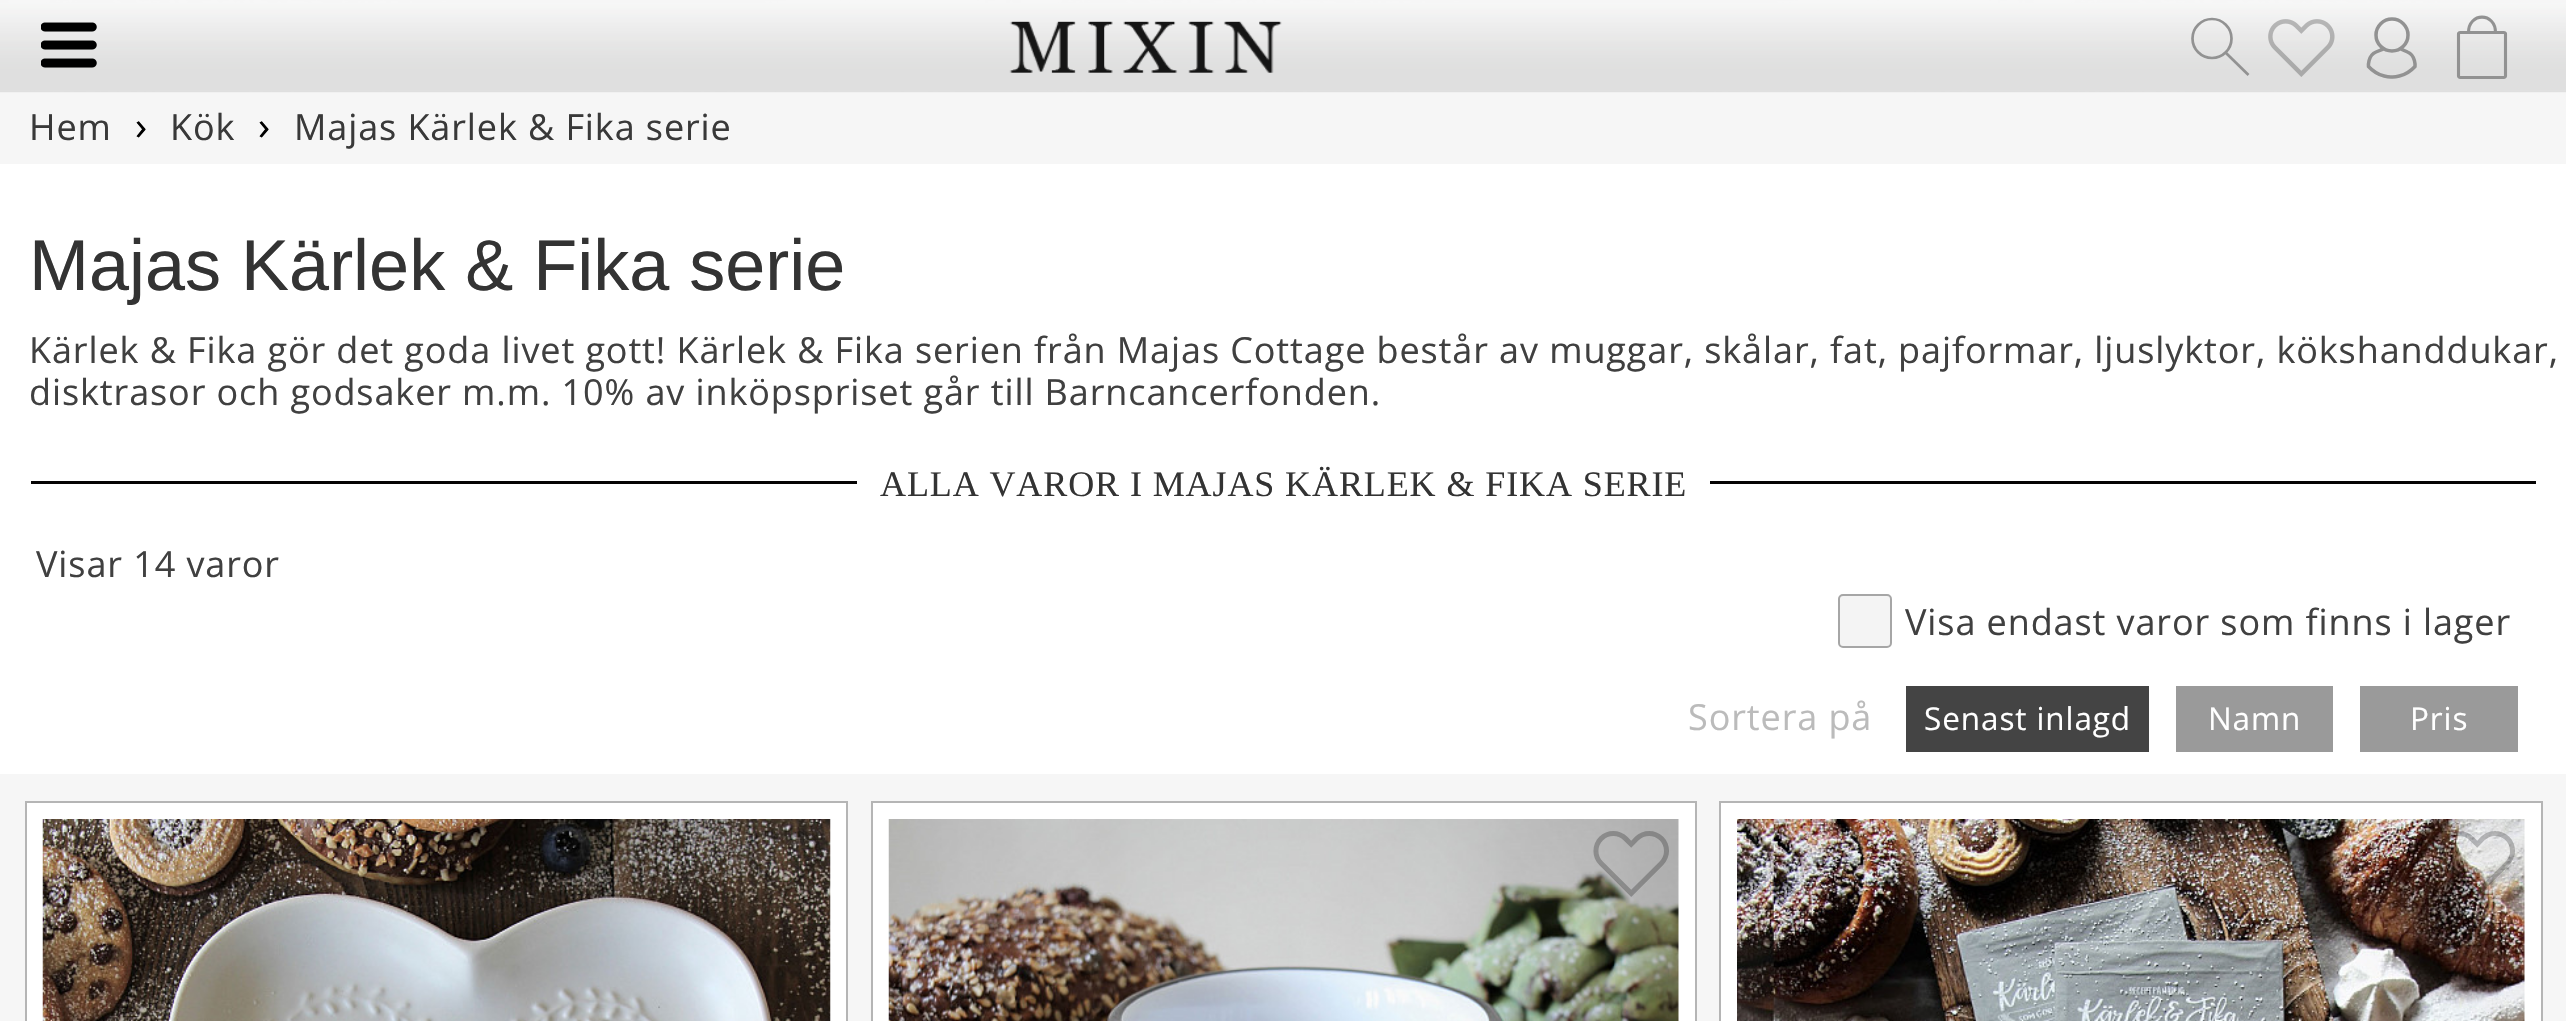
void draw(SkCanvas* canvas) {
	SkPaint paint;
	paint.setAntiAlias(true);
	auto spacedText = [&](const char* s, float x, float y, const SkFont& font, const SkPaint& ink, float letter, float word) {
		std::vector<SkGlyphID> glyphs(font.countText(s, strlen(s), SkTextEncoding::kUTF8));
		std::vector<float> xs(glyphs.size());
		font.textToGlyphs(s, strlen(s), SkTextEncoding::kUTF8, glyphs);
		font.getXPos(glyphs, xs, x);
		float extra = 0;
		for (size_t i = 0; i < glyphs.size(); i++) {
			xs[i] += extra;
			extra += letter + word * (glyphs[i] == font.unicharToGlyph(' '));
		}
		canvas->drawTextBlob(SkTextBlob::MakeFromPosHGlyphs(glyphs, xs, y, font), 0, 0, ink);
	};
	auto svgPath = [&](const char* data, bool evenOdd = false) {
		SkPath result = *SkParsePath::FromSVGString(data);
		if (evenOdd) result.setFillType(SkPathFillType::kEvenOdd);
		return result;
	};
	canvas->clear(0xffffffff);
	canvas->drawImageRect(SkImages::DeferredFromEncodedData(SkData::MakeFromFileName("img1.png")), SkRect::MakeXYWH(0, 0, 2566, 92), SkSamplingOptions());
	paint.setColor(0xfff6f6f6);
	canvas->drawRect(SkRect::MakeXYWH(0, 92, 2566, 72), paint);
	canvas->drawImageRect(SkImages::DeferredFromEncodedData(SkData::MakeFromFileName("img2.png")), SkRect::MakeXYWH(0, 0, 2566, 93), SkSamplingOptions());
	canvas->drawImageRect(SkImages::DeferredFromEncodedData(SkData::MakeFromFileName("img3.png")), SkRect::MakeXYWH(41, 22, 56, 46), SkSamplingOptions());
	canvas->drawImageRect(SkImages::DeferredFromEncodedData(SkData::MakeFromFileName("img4.png")), SkRect::MakeXYWH(1009, 21, 273, 52), SkSamplingOptions());
	paint.setStroke(true);
	paint.setStrokeWidth(2.7);
	paint.setColor(0xff929292);
	canvas->drawCircle(2212, 38.5, 19.5, paint);
	canvas->drawPath(svgPath("M2225.5 52.5L2248.5 75"), paint);
	canvas->drawImageRect(SkImages::DeferredFromEncodedData(SkData::MakeFromFileName("img5.png")), SkRect::MakeXYWH(2268, 19, 67, 58), SkSamplingOptions());
	paint.setStrokeWidth(3.5);
	canvas->drawCircle(2392, 35, 16, paint);
	canvas->drawPath(svgPath("M2391.5 77C2391.5 77 2404.5 78 2415 66.5C2415 66.5 2416 55.5 2407.5 52L2402 49.5L2401.5 47.5M2392 77C2392 77 2379 78 2368.5 66.5C2368.5 66.5 2367.5 55.5 2376 52L2382 49.5V47.5"), paint);
	paint.setStrokeWidth(3.1);
	canvas->drawPath(svgPath("M2504 77.5H2460C2459.5 77.5 2458.5 77 2458.5 76V33.5C2458.5 33 2459.5 32.5 2460 32.5H2504C2504.5 32.5 2505.5 33 2505.5 33.5V76C2505.5 77 2504.5 77.5 2504 77.5Z"), paint);
	canvas->drawPath(svgPath("M2468.5 32.5C2468.5 12 2495.5 12 2495.5 32.5"), paint);
	SkFont f1(fontMgr->matchFamilyStyle("Open Sans", SkFontStyle::Normal()), 36);
	f1.setSubpixel(true);
	paint.setStroke(false);
	paint.setColor(0xff393939);
	spacedText("Hem", 29, 140, f1, paint, 0.9, 0);
	SkFont f2(fontMgr->matchFamilyStyle("Open Sans", SkFontStyle::Normal()), 40);
	f2.setSubpixel(true);
	paint.setColor(0xff000000);
	spacedText("›", 135, 140, f2, paint, 0.9, 0);
	paint.setColor(0xff393939);
	spacedText("Kök", 170, 140, f1, paint, 0.9, 0);
	paint.setColor(0xff000000);
	spacedText("›", 258, 140, f2, paint, 0.9, 0);
	paint.setColor(0xff393939);
	spacedText("Majas Kärlek & Fika serie", 294, 140, f1, paint, 0.9, 0);
	SkFont f3(fontMgr->matchFamilyStyle("Liberation Sans", SkFontStyle::Normal()), 72);
	f3.setSubpixel(true);
	paint.setColor(0xff333333);
	canvas->drawString("Majas Kärlek & Fika serie", 29, 290, f3, paint);
	paint.setColor(0xff404040);
	spacedText("Kärlek & Fika gör det goda livet gott! Kärlek & Fika serien från Majas Cottage består av muggar, skålar, fat, pajformar, ljuslyktor, kökshanddukar,", 29, 363, f1, paint, 0.9, 0);
	spacedText("disktrasor och godsaker m.m. 10% av inköpspriset går till Barncancerfonden.", 29, 405, f1, paint, 0.9, 0);
	paint.setColor(0xff050404);
	canvas->drawRect(SkRect::MakeXYWH(31, 481, 2505, 3), paint);
	paint.setColor(0xffffffff);
	canvas->drawRect(SkRect::MakeXYWH(857, 481, 853, 3), paint);
	SkFont f4(fontMgr->matchFamilyStyle("Liberation Serif", SkFontStyle::Normal()), 36);
	f4.setSubpixel(true);
	paint.setColor(0xff333333);
	spacedText("ALLA VAROR I MAJAS KÄRLEK & FIKA SERIE", 880, 496, f4, paint, 0.9, 0);
	paint.setColor(0xff404040);
	spacedText("Visar 14 varor", 36, 577, f1, paint, 0.9, 0);
	paint.setColor(0xfff4f4f4);
	canvas->drawRoundRect(SkRect::MakeXYWH(1839, 595, 52, 52), 4, 4, paint);
	paint.setStroke(true);
	paint.setStrokeWidth(2);
	paint.setColor(0xffa6a6a6);
	canvas->drawRoundRect(SkRect::MakeXYWH(1839, 595, 52, 52), 4, 4, paint);
	paint.setStroke(false);
	paint.setColor(0xff404040);
	spacedText("Visa endast varor som finns i lager", 1905, 635, f1, paint, 0.9, 0);
	paint.setColor(0xffbbbbbb);
	spacedText("Sortera på", 1688, 730, f1, paint, 0.9, 0);
	paint.setColor(0xff444444);
	canvas->drawRect(SkRect::MakeXYWH(1906, 686, 243, 66), paint);
	SkFont f5(fontMgr->matchFamilyStyle("Open Sans", SkFontStyle::Normal()), 31.5);
	f5.setSubpixel(true);
	paint.setColor(0xffffffff);
	spacedText("Senast inlagd", 1924, 730, f5, paint, 0.9, 0);
	paint.setColor(0xff9a9a9a);
	canvas->drawRect(SkRect::MakeXYWH(2176, 686, 157, 66), paint);
	paint.setColor(0xffffffff);
	spacedText("Namn", 2208, 730, f5, paint, 0.9, 0);
	paint.setColor(0xff9a9a9a);
	canvas->drawRect(SkRect::MakeXYWH(2360, 686, 158, 66), paint);
	paint.setColor(0xffffffff);
	spacedText("Pris", 2410, 730, f5, paint, 0.9, 0);
	paint.setColor(0xfff6f6f6);
	canvas->drawRect(SkRect::MakeXYWH(0, 774, 2566, 247), paint);
	paint.setColor(0xffffffff);
	canvas->drawRect(SkRect::MakeXYWH(26, 802, 821, 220), paint);
	paint.setStroke(true);
	paint.setColor(0xffb5b5b5);
	canvas->drawRect(SkRect::MakeXYWH(26, 802, 821, 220), paint);
	canvas->drawImageRect(SkImages::DeferredFromEncodedData(SkData::MakeFromFileName("img6.png")), SkRect::MakeXYWH(42, 819, 789, 202), SkSamplingOptions());
	canvas->drawImageRect(SkImages::DeferredFromEncodedData(SkData::MakeFromFileName("img7.png")), SkRect::MakeXYWH(745, 831, 76, 66), SkSamplingOptions());
	paint.setStroke(false);
	paint.setColor(0xffffffff);
	canvas->drawRect(SkRect::MakeXYWH(872, 802, 824, 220), paint);
	paint.setStroke(true);
	paint.setColor(0xffb5b5b5);
	canvas->drawRect(SkRect::MakeXYWH(872, 802, 824, 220), paint);
	canvas->drawImageRect(SkImages::DeferredFromEncodedData(SkData::MakeFromFileName("img8.png")), SkRect::MakeXYWH(888, 819, 791, 202), SkSamplingOptions());
	canvas->drawImageRect(SkImages::DeferredFromEncodedData(SkData::MakeFromFileName("img9.png")), SkRect::MakeXYWH(1593, 831, 76, 66), SkSamplingOptions());
	paint.setStroke(false);
	paint.setColor(0xffffffff);
	canvas->drawRect(SkRect::MakeXYWH(1720, 802, 822, 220), paint);
	paint.setStroke(true);
	paint.setColor(0xffb5b5b5);
	canvas->drawRect(SkRect::MakeXYWH(1720, 802, 822, 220), paint);
	canvas->drawImageRect(SkImages::DeferredFromEncodedData(SkData::MakeFromFileName("img10.png")), SkRect::MakeXYWH(1737, 819, 788, 202), SkSamplingOptions());
	canvas->drawImageRect(SkImages::DeferredFromEncodedData(SkData::MakeFromFileName("img11.png")), SkRect::MakeXYWH(2439, 831, 76, 66), SkSamplingOptions());
}
